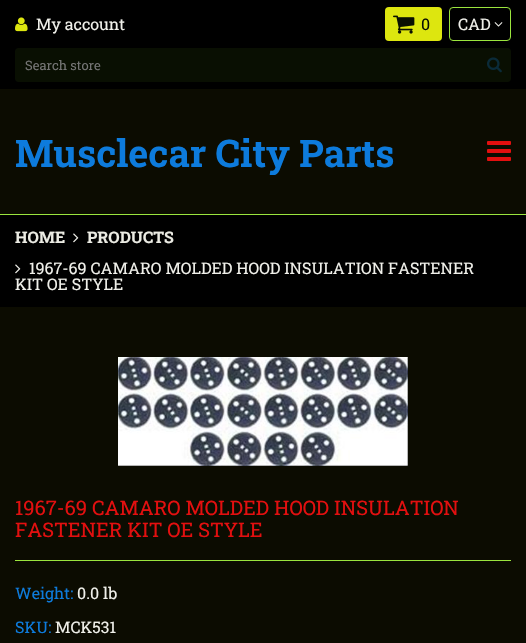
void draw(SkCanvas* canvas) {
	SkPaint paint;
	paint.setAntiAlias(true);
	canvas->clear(0xff000000);
	paint.setColor(0xffdde60f);
	canvas->drawRoundRect(SkRect::MakeXYWH(385, 7, 57, 34), 4, 4, paint);
	canvas->drawImageRect(SkImages::DeferredFromEncodedData(SkData::MakeFromFileName("img1.png")), SkRect::MakeXYWH(393, 15, 22, 19), SkSamplingOptions());
	SkFont f1(fontMgr->matchFamilyStyle("Roboto Slab", SkFontStyle::Normal()), 16);
	f1.setSubpixel(true);
	paint.setColor(0xff090f02);
	canvas->drawString("0", 421, 30, f1, paint);
	paint.setStroke(true);
	paint.setStrokeWidth(1);
	paint.setColor(0xff9be53e);
	canvas->drawRoundRect(SkRect::MakeXYWH(449.5, 7.5, 61, 33), 3.5, 3.5, paint);
	paint.setStroke(false);
	paint.setColor(0xfff0f0ea);
	canvas->drawString("CAD", 458, 30, f1, paint);
	canvas->drawImageRect(SkImages::DeferredFromEncodedData(SkData::MakeFromFileName("img2.png")), SkRect::MakeXYWH(494, 22, 9, 5), SkSamplingOptions());
	paint.setColor(0xff090f02);
	canvas->drawRoundRect(SkRect::MakeXYWH(15, 48, 496, 34), 4, 4, paint);
	SkFont f2(fontMgr->matchFamilyStyle("Roboto Slab", SkFontStyle::Normal()), 13);
	f2.setSubpixel(true);
	paint.setColor(0xff757575);
	canvas->drawString("Search store", 25, 70, f2, paint);
	canvas->drawImageRect(SkImages::DeferredFromEncodedData(SkData::MakeFromFileName("img3.png")), SkRect::MakeXYWH(487, 57, 15, 16), SkSamplingOptions());
	canvas->drawImageRect(SkImages::DeferredFromEncodedData(SkData::MakeFromFileName("img4.png")), SkRect::MakeXYWH(15, 17, 13, 15), SkSamplingOptions());
	paint.setColor(0xfff0f0ea);
	canvas->drawString("My account", 36, 30, f1, paint);
	paint.setColor(0xff9be53e);
	canvas->drawRect(SkRect::MakeXYWH(0, 214, 526, 1), paint);
	paint.setColor(0xff0c0c01);
	canvas->drawRect(SkRect::MakeXYWH(0, 89, 526, 125), paint);
	SkFont f3(fontMgr->matchFamilyStyle("Roboto Slab", SkFontStyle::Bold()), 38);
	f3.setSubpixel(true);
	paint.setColor(0xff0d7bdc);
	canvas->drawString("Musclecar City Parts", 15, 167, f3, paint);
	canvas->drawImageRect(SkImages::DeferredFromEncodedData(SkData::MakeFromFileName("img5.png")), SkRect::MakeXYWH(487, 141, 24, 20), SkSamplingOptions());
	paint.setColor(0xff0c0c01);
	canvas->drawRect(SkRect::MakeXYWH(0, 307, 526, 336), paint);
	SkFont f4(fontMgr->matchFamilyStyle("Roboto Slab", SkFontStyle::Bold()), 16);
	f4.setSubpixel(true);
	paint.setColor(0xffebebe3);
	canvas->drawString("HOME", 15, 243, f4, paint);
	canvas->drawImageRect(SkImages::DeferredFromEncodedData(SkData::MakeFromFileName("img6.png")), SkRect::MakeXYWH(73, 233, 6, 10), SkSamplingOptions());
	canvas->drawString("PRODUCTS", 87, 243, f4, paint);
	canvas->drawImageRect(SkImages::DeferredFromEncodedData(SkData::MakeFromFileName("img6.png")), SkRect::MakeXYWH(15, 264, 6, 10), SkSamplingOptions());
	paint.setColor(0xfff0f0ea);
	canvas->drawString("1967-69 CAMARO MOLDED HOOD INSULATION FASTENER", 29, 274, f1, paint);
	canvas->drawString("KIT OE STYLE", 15, 290, f1, paint);
	canvas->drawImageRect(SkImages::DeferredFromEncodedData(SkData::MakeFromFileName("img7.png")), SkRect::MakeXYWH(118, 357, 290, 109), SkSamplingOptions());
	SkFont f5(fontMgr->matchFamilyStyle("Roboto Slab", SkFontStyle::Normal()), 20);
	f5.setSubpixel(true);
	paint.setColor(0xffe30f0f);
	canvas->drawString("1967-69 CAMARO MOLDED HOOD INSULATION", 15, 515, f5, paint);
	canvas->drawString("FASTENER KIT OE STYLE", 15, 537, f5, paint);
	paint.setColor(0xff9be53e);
	canvas->drawRect(SkRect::MakeXYWH(15, 560, 496, 1), paint);
	paint.setColor(0xff0d7bdc);
	canvas->drawString("Weight:", 15, 599, f1, paint);
	paint.setColor(0xfff0f0ea);
	canvas->drawString("0.0 lb", 77, 599, f1, paint);
	paint.setColor(0xff0d7bdc);
	canvas->drawString("SKU:", 15, 633, f1, paint);
	paint.setColor(0xfff0f0ea);
	canvas->drawString("MCK531", 55, 633, f1, paint);
}
